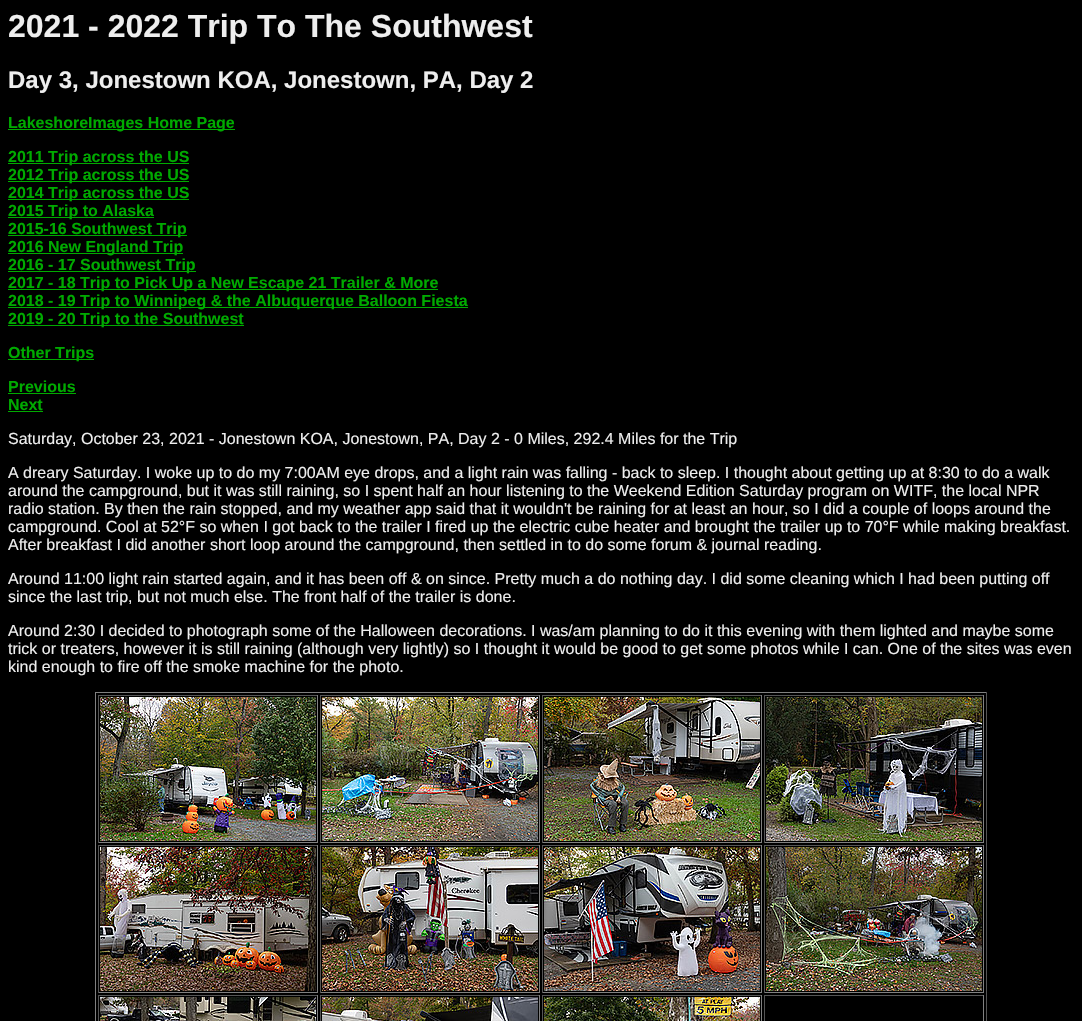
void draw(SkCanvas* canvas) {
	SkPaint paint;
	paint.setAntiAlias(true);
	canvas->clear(0xff000000);
	SkFont f1(fontMgr->matchFamilyStyle("Liberation Sans", SkFontStyle::Bold()), 32);
	f1.setSubpixel(true);
	paint.setColor(0xffeeeeee);
	canvas->drawString("2021 - 2022 Trip To The Southwest", 8, 37, f1, paint);
	SkFont f2(fontMgr->matchFamilyStyle("Liberation Sans", SkFontStyle::Bold()), 24);
	f2.setSubpixel(true);
	canvas->drawString("Day 3, Jonestown KOA, Jonestown, PA, Day 2", 8, 88, f2, paint);
	paint.setColor(0xff00aa00);
	canvas->drawRect(SkRect::MakeXYWH(8, 129, 227, 1), paint);
	SkFont f3(fontMgr->matchFamilyStyle("Liberation Sans", SkFontStyle::Bold()), 16);
	f3.setSubpixel(true);
	canvas->drawString("LakeshoreImages Home Page", 8, 128, f3, paint);
	canvas->drawRect(SkRect::MakeXYWH(8, 163, 181, 1), paint);
	canvas->drawString("2011 Trip across the US", 8, 162, f3, paint);
	canvas->drawRect(SkRect::MakeXYWH(8, 181, 181, 1), paint);
	canvas->drawString("2012 Trip across the US", 8, 180, f3, paint);
	canvas->drawRect(SkRect::MakeXYWH(8, 199, 181, 1), paint);
	canvas->drawString("2014 Trip across the US", 8, 198, f3, paint);
	canvas->drawRect(SkRect::MakeXYWH(8, 217, 146, 1), paint);
	canvas->drawString("2015 Trip to Alaska", 8, 216, f3, paint);
	canvas->drawRect(SkRect::MakeXYWH(8, 235, 179, 1), paint);
	canvas->drawString("2015-16 Southwest Trip", 8, 234, f3, paint);
	canvas->drawRect(SkRect::MakeXYWH(8, 253, 175, 1), paint);
	canvas->drawString("2016 New England Trip", 8, 252, f3, paint);
	canvas->drawRect(SkRect::MakeXYWH(8, 271, 188, 1), paint);
	canvas->drawString("2016 - 17 Southwest Trip", 8, 270, f3, paint);
	canvas->drawRect(SkRect::MakeXYWH(8, 289, 430, 1), paint);
	canvas->drawString("2017 - 18 Trip to Pick Up a New Escape 21 Trailer & More", 8, 288, f3, paint);
	canvas->drawRect(SkRect::MakeXYWH(8, 307, 460, 1), paint);
	canvas->drawString("2018 - 19 Trip to Winnipeg & the Albuquerque Balloon Fiesta", 8, 306, f3, paint);
	canvas->drawRect(SkRect::MakeXYWH(8, 325, 236, 1), paint);
	canvas->drawString("2019 - 20 Trip to the Southwest", 8, 324, f3, paint);
	canvas->drawRect(SkRect::MakeXYWH(8, 359, 86, 1), paint);
	canvas->drawString("Other Trips", 8, 358, f3, paint);
	canvas->drawString("Previous", 8, 392, f3, paint);
	canvas->drawRect(SkRect::MakeXYWH(8, 393, 68, 1), paint);
	canvas->drawString("Next", 8, 410, f3, paint);
	canvas->drawRect(SkRect::MakeXYWH(8, 411, 35, 1), paint);
	SkFont f4(fontMgr->matchFamilyStyle("Liberation Sans", SkFontStyle::Normal()), 16);
	f4.setSubpixel(true);
	paint.setColor(0xffeeeeee);
	canvas->drawString("Saturday, October 23, 2021 - Jonestown KOA, Jonestown, PA, Day 2 - 0 Miles, 292.4 Miles for the Trip", 8, 444, f4, paint);
	canvas->drawString("A dreary Saturday. I woke up to do my 7:00AM eye drops, and a light rain was falling - back to sleep. I thought about getting up at 8:30 to do a walk", 8, 478, f4, paint);
	canvas->drawString("around the campground, but it was still raining, so I spent half an hour listening to the Weekend Edition Saturday program on WITF, the local NPR", 8, 496, f4, paint);
	canvas->drawString("radio station. By then the rain stopped, and my weather app said that it wouldn't be raining for at least an hour, so I did a couple of loops around the", 8, 514, f4, paint);
	canvas->drawString("campground. Cool at 52°F so when I got back to the trailer I fired up the electric cube heater and brought the trailer up to 70°F while making breakfast.", 8, 532, f4, paint);
	canvas->drawString("After breakfast I did another short loop around the campground, then settled in to do some forum & journal reading.", 8, 550, f4, paint);
	canvas->drawString("Around 11:00 light rain started again, and it has been off & on since. Pretty much a do nothing day. I did some cleaning which I had been putting off", 8, 584, f4, paint);
	canvas->drawString("since the last trip, but not much else. The front half of the trailer is done.", 8, 602, f4, paint);
	canvas->drawString("Around 2:30 I decided to photograph some of the Halloween decorations. I was/am planning to do it this evening with them lighted and maybe some", 8, 636, f4, paint);
	canvas->drawString("trick or treaters, however it is still raining (although very lightly) so I thought it would be good to get some photos while I can. One of the sites was even", 8, 654, f4, paint);
	canvas->drawString("kind enough to fire off the smoke machine for the photo.", 8, 672, f4, paint);
	paint.setColor(0xff808080);
	canvas->drawRect(SkRect::MakeXYWH(95, 692, 892, 1), paint);
	paint.setColor(0xff555555);
	canvas->drawRect(SkRect::MakeXYWH(986, 692, 1, 329), paint);
	paint.setColor(0xff808080);
	canvas->drawRect(SkRect::MakeXYWH(95, 692, 1, 329), paint);
	paint.setColor(0xff555555);
	canvas->drawRect(SkRect::MakeXYWH(98, 695, 220, 1), paint);
	paint.setColor(0xff808080);
	canvas->drawRect(SkRect::MakeXYWH(317, 695, 1, 148), paint);
	canvas->drawRect(SkRect::MakeXYWH(98, 842, 220, 1), paint);
	paint.setColor(0xff555555);
	canvas->drawRect(SkRect::MakeXYWH(98, 695, 1, 148), paint);
	canvas->drawImageRect(SkImages::DeferredFromEncodedData(SkData::MakeFromFileName("img1.png")), SkRect::MakeXYWH(100, 697, 216, 144), SkSamplingOptions());
	canvas->drawRect(SkRect::MakeXYWH(320, 695, 220, 1), paint);
	paint.setColor(0xff808080);
	canvas->drawRect(SkRect::MakeXYWH(539, 695, 1, 148), paint);
	canvas->drawRect(SkRect::MakeXYWH(320, 842, 220, 1), paint);
	paint.setColor(0xff555555);
	canvas->drawRect(SkRect::MakeXYWH(320, 695, 1, 148), paint);
	canvas->drawImageRect(SkImages::DeferredFromEncodedData(SkData::MakeFromFileName("img2.png")), SkRect::MakeXYWH(322, 697, 216, 144), SkSamplingOptions());
	canvas->drawRect(SkRect::MakeXYWH(542, 695, 220, 1), paint);
	paint.setColor(0xff808080);
	canvas->drawRect(SkRect::MakeXYWH(761, 695, 1, 148), paint);
	canvas->drawRect(SkRect::MakeXYWH(542, 842, 220, 1), paint);
	paint.setColor(0xff555555);
	canvas->drawRect(SkRect::MakeXYWH(542, 695, 1, 148), paint);
	canvas->drawImageRect(SkImages::DeferredFromEncodedData(SkData::MakeFromFileName("img3.png")), SkRect::MakeXYWH(544, 697, 216, 144), SkSamplingOptions());
	canvas->drawRect(SkRect::MakeXYWH(764, 695, 220, 1), paint);
	paint.setColor(0xff808080);
	canvas->drawRect(SkRect::MakeXYWH(983, 695, 1, 148), paint);
	canvas->drawRect(SkRect::MakeXYWH(764, 842, 220, 1), paint);
	paint.setColor(0xff555555);
	canvas->drawRect(SkRect::MakeXYWH(764, 695, 1, 148), paint);
	canvas->drawImageRect(SkImages::DeferredFromEncodedData(SkData::MakeFromFileName("img4.png")), SkRect::MakeXYWH(766, 697, 216, 144), SkSamplingOptions());
	canvas->drawRect(SkRect::MakeXYWH(98, 845, 220, 1), paint);
	paint.setColor(0xff808080);
	canvas->drawRect(SkRect::MakeXYWH(317, 845, 1, 148), paint);
	canvas->drawRect(SkRect::MakeXYWH(98, 992, 220, 1), paint);
	paint.setColor(0xff555555);
	canvas->drawRect(SkRect::MakeXYWH(98, 845, 1, 148), paint);
	canvas->drawImageRect(SkImages::DeferredFromEncodedData(SkData::MakeFromFileName("img5.png")), SkRect::MakeXYWH(100, 847, 216, 144), SkSamplingOptions());
	canvas->drawRect(SkRect::MakeXYWH(320, 845, 220, 1), paint);
	paint.setColor(0xff808080);
	canvas->drawRect(SkRect::MakeXYWH(539, 845, 1, 148), paint);
	canvas->drawRect(SkRect::MakeXYWH(320, 992, 220, 1), paint);
	paint.setColor(0xff555555);
	canvas->drawRect(SkRect::MakeXYWH(320, 845, 1, 148), paint);
	canvas->drawImageRect(SkImages::DeferredFromEncodedData(SkData::MakeFromFileName("img6.png")), SkRect::MakeXYWH(322, 847, 216, 144), SkSamplingOptions());
	canvas->drawRect(SkRect::MakeXYWH(542, 845, 220, 1), paint);
	paint.setColor(0xff808080);
	canvas->drawRect(SkRect::MakeXYWH(761, 845, 1, 148), paint);
	canvas->drawRect(SkRect::MakeXYWH(542, 992, 220, 1), paint);
	paint.setColor(0xff555555);
	canvas->drawRect(SkRect::MakeXYWH(542, 845, 1, 148), paint);
	canvas->drawImageRect(SkImages::DeferredFromEncodedData(SkData::MakeFromFileName("img7.png")), SkRect::MakeXYWH(544, 847, 216, 144), SkSamplingOptions());
	canvas->drawRect(SkRect::MakeXYWH(764, 845, 220, 1), paint);
	paint.setColor(0xff808080);
	canvas->drawRect(SkRect::MakeXYWH(983, 845, 1, 148), paint);
	canvas->drawRect(SkRect::MakeXYWH(764, 992, 220, 1), paint);
	paint.setColor(0xff555555);
	canvas->drawRect(SkRect::MakeXYWH(764, 845, 1, 148), paint);
	canvas->drawImageRect(SkImages::DeferredFromEncodedData(SkData::MakeFromFileName("img8.png")), SkRect::MakeXYWH(766, 847, 216, 144), SkSamplingOptions());
	canvas->drawRect(SkRect::MakeXYWH(98, 995, 220, 1), paint);
	paint.setColor(0xff808080);
	canvas->drawRect(SkRect::MakeXYWH(317, 995, 1, 26), paint);
	paint.setColor(0xff555555);
	canvas->drawRect(SkRect::MakeXYWH(98, 995, 1, 26), paint);
	canvas->drawImageRect(SkImages::DeferredFromEncodedData(SkData::MakeFromFileName("img9.png")), SkRect::MakeXYWH(100, 997, 216, 24), SkSamplingOptions());
	canvas->drawRect(SkRect::MakeXYWH(320, 995, 220, 1), paint);
	paint.setColor(0xff808080);
	canvas->drawRect(SkRect::MakeXYWH(539, 995, 1, 26), paint);
	paint.setColor(0xff555555);
	canvas->drawRect(SkRect::MakeXYWH(320, 995, 1, 26), paint);
	canvas->drawImageRect(SkImages::DeferredFromEncodedData(SkData::MakeFromFileName("img10.png")), SkRect::MakeXYWH(322, 997, 216, 24), SkSamplingOptions());
	canvas->drawRect(SkRect::MakeXYWH(542, 995, 220, 1), paint);
	paint.setColor(0xff808080);
	canvas->drawRect(SkRect::MakeXYWH(761, 995, 1, 26), paint);
	paint.setColor(0xff555555);
	canvas->drawRect(SkRect::MakeXYWH(542, 995, 1, 26), paint);
	canvas->drawImageRect(SkImages::DeferredFromEncodedData(SkData::MakeFromFileName("img11.png")), SkRect::MakeXYWH(544, 997, 216, 24), SkSamplingOptions());
	canvas->drawRect(SkRect::MakeXYWH(764, 995, 220, 1), paint);
	paint.setColor(0xff808080);
	canvas->drawRect(SkRect::MakeXYWH(983, 995, 1, 26), paint);
	paint.setColor(0xff555555);
	canvas->drawRect(SkRect::MakeXYWH(764, 995, 1, 26), paint);
}
